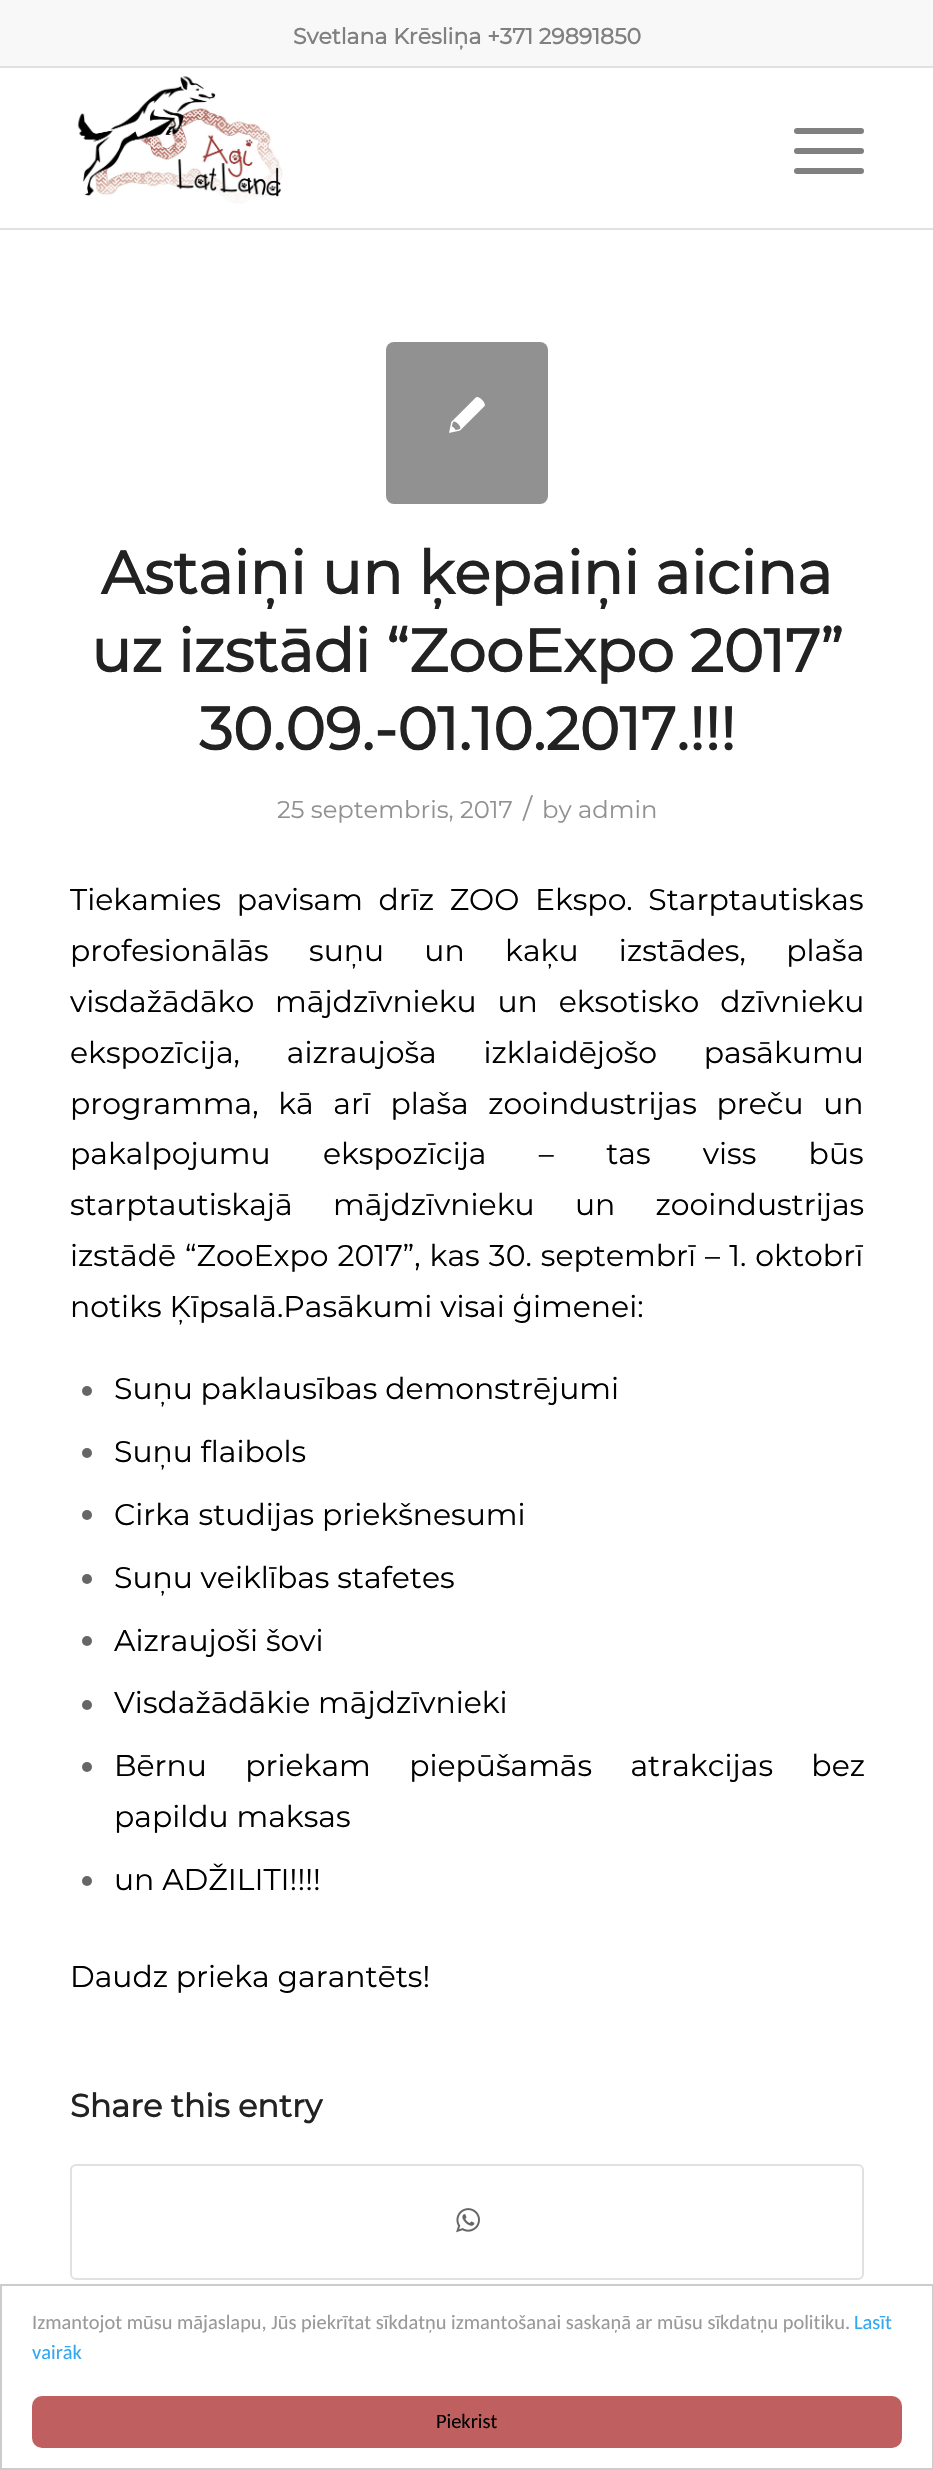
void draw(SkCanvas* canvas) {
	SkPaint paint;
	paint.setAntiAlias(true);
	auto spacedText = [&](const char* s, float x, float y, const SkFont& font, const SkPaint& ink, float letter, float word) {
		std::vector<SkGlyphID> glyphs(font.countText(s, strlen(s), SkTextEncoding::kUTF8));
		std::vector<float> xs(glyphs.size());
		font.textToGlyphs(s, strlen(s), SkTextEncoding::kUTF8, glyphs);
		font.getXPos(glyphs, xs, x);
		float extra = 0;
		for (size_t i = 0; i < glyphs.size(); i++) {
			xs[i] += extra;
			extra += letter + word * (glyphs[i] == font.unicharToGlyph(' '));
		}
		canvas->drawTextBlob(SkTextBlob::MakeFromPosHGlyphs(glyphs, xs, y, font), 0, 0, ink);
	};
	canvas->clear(0xffffffff);
	paint.setColor(0xfff8f8f8);
	canvas->drawRect(SkRect::MakeXYWH(0, 0, 933, 66), paint);
	paint.setColor(0xffe1e1e1);
	canvas->drawRect(SkRect::MakeXYWH(0, 66, 933, 2), paint);
	SkFont f1(fontMgr->matchFamilyStyle("Montserrat", SkFontStyle::Bold()), 22);
	f1.setSubpixel(true);
	paint.setColor(0xff808080);
	canvas->drawString("Svetlana Krēsliņa +371 29891850", 293, 44, f1, paint);
	paint.setColor(0xffe1e1e1);
	canvas->drawRect(SkRect::MakeXYWH(0, 228, 933, 2), paint);
	canvas->drawImageRect(SkImages::DeferredFromEncodedData(SkData::MakeFromFileName("img1.png")), SkRect::MakeXYWH(77, 76, 206, 128), SkSamplingOptions());
	paint.setColor(0xff808080);
	canvas->drawRoundRect(SkRect::MakeXYWH(794, 148, 70, 6), 3, 3, paint);
	canvas->drawRoundRect(SkRect::MakeXYWH(794, 128, 70, 6), 3, 3, paint);
	canvas->drawRoundRect(SkRect::MakeXYWH(794, 168, 70, 6), 3, 3, paint);
	paint.setColor(0xff919191);
	canvas->drawRoundRect(SkRect::MakeXYWH(386, 342, 162, 162), 8, 8, paint);
	canvas->drawImageRect(SkImages::DeferredFromEncodedData(SkData::MakeFromFileName("img2.png")), SkRect::MakeXYWH(449, 397, 36, 36), SkSamplingOptions());
	SkFont f2(fontMgr->matchFamilyStyle("Montserrat", SkFontStyle::Bold()), 60);
	f2.setSubpixel(true);
	paint.setColor(0xff222222);
	canvas->drawString("Astaiņi un ķepaiņi aicina", 101, 594, f2, paint);
	canvas->drawString("uz izstādi “ZooExpo 2017”", 91, 672, f2, paint);
	canvas->drawString("30.09.-01.10.2017.!!!", 199, 750, f2, paint);
	SkFont f3(fontMgr->matchFamilyStyle("Montserrat", SkFontStyle(100, SkFontStyle::kNormal_Width, SkFontStyle::kUpright_Slant)), 24.25);
	f3.setSubpixel(true);
	paint.setColor(0xff919191);
	canvas->drawString("25 septembris, 2017", 277, 818, f3, paint);
	SkFont f4(fontMgr->matchFamilyStyle("Montserrat", SkFontStyle(100, SkFontStyle::kNormal_Width, SkFontStyle::kUpright_Slant)), 27);
	f4.setSubpixel(true);
	canvas->drawString("/", 523, 818, f4, paint);
	canvas->drawString("by admin", 542, 818, f3, paint);
	SkFont f5(fontMgr->matchFamilyStyle("Montserrat", SkFontStyle(100, SkFontStyle::kNormal_Width, SkFontStyle::kUpright_Slant)), 29.9);
	f5.setSubpixel(true);
	paint.setColor(0xff000000);
	spacedText("Tiekamies pavisam drīz ZOO Ekspo. Starptautiskas", 70, 910, f5, paint, 0, 7.75);
	spacedText("profesionālās suņu un kaķu izstādes, plaša", 70, 961, f5, paint, 0, 32.5);
	spacedText("visdažādāko mājdzīvnieku un eksotisko dzīvnieku", 70, 1012, f5, paint, 0, 13);
	spacedText("ekspozīcija, aizraujoša izklaidējošo pasākumu", 70, 1063, f5, paint, 0, 39);
	spacedText("programma, kā arī plaša zooindustrijas preču un", 70, 1114, f5, paint, 0, 11.75);
	spacedText("pakalpojumu ekspozīcija – tas viss būs", 70, 1164, f5, paint, 0, 44.5);
	spacedText("starptautiskajā mājdzīvnieku un zooindustrijas", 70, 1215, f5, paint, 0, 32.5);
	spacedText("izstādē “ZooExpo 2017”, kas 30. septembrī – 1. oktobrī", 70, 1266, f5, paint, 0, 1.25);
	canvas->drawString("notiks Ķīpsalā.Pasākumi visai ģimenei:", 70, 1317, f5, paint);
	paint.setColor(0xff666666);
	canvas->drawCircle(87, 1391, 5, paint);
	paint.setColor(0xff000000);
	canvas->drawString("Suņu paklausības demonstrējumi", 114, 1399, f5, paint);
	paint.setColor(0xff666666);
	canvas->drawCircle(87, 1453, 5, paint);
	paint.setColor(0xff000000);
	canvas->drawString("Suņu flaibols", 114, 1462, f5, paint);
	paint.setColor(0xff666666);
	canvas->drawCircle(87, 1515, 5, paint);
	paint.setColor(0xff000000);
	canvas->drawString("Cirka studijas priekšnesumi", 114, 1525, f5, paint);
	paint.setColor(0xff666666);
	canvas->drawCircle(87, 1579, 5, paint);
	paint.setColor(0xff000000);
	canvas->drawString("Suņu veiklības stafetes", 114, 1588, f5, paint);
	paint.setColor(0xff666666);
	canvas->drawCircle(87, 1641, 5, paint);
	paint.setColor(0xff000000);
	canvas->drawString("Aizraujoši šovi", 114, 1651, f5, paint);
	paint.setColor(0xff666666);
	canvas->drawCircle(87, 1705, 5, paint);
	paint.setColor(0xff000000);
	canvas->drawString("Visdažādākie mājdzīvnieki", 114, 1713, f5, paint);
	paint.setColor(0xff666666);
	canvas->drawCircle(87, 1767, 5, paint);
	paint.setColor(0xff000000);
	spacedText("Bērnu priekam piepūšamās atrakcijas bez", 114, 1776, f5, paint, 0, 30.5);
	canvas->drawString("papildu maksas", 114, 1827, f5, paint);
	paint.setColor(0xff666666);
	canvas->drawCircle(87, 1881, 5, paint);
	paint.setColor(0xff000000);
	canvas->drawString("un ADŽILITI!!!!", 114, 1890, f5, paint);
	canvas->drawString("Daudz prieka garantēts!", 70, 1987, f5, paint);
	SkFont f6(fontMgr->matchFamilyStyle("Montserrat", SkFontStyle::Bold()), 32);
	f6.setSubpixel(true);
	paint.setColor(0xff222222);
	canvas->drawString("Share this entry", 70, 2117, f6, paint);
	paint.setStroke(true);
	paint.setStrokeWidth(2);
	paint.setColor(0xffe1e1e1);
	canvas->drawRoundRect(SkRect::MakeXYWH(71, 2165, 792, 114), 5, 5, paint);
	canvas->drawImageRect(SkImages::DeferredFromEncodedData(SkData::MakeFromFileName("img3.png")), SkRect::MakeXYWH(456, 2208, 24, 25), SkSamplingOptions());
	paint.setColor(0xffcccccc);
	canvas->drawRect(SkRect::MakeXYWH(1, 2285, 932, 184), paint);
	SkFont f7(fontMgr->matchFamilyStyle("Carlito", SkFontStyle::Normal()), 20.4);
	f7.setSubpixel(true);
	paint.setStroke(false);
	paint.setColor(0xff999999);
	canvas->drawString("Izmantojot mūsu mājaslapu, Jūs piekrītat sīkdatņu izmantošanai saskaņā ar mūsu sīkdatņu politiku.", 32, 2329, f7, paint);
	paint.setColor(0xff31a8f0);
	canvas->drawString("Lasīt", 854, 2329, f7, paint);
	canvas->drawString("vairāk", 32, 2359, f7, paint);
	paint.setColor(0xffc05f5f);
	canvas->drawRoundRect(SkRect::MakeXYWH(32, 2396, 870, 52), 10, 10, paint);
	paint.setColor(0xff000000);
	canvas->drawString("Piekrist", 436, 2428, f7, paint);
}
